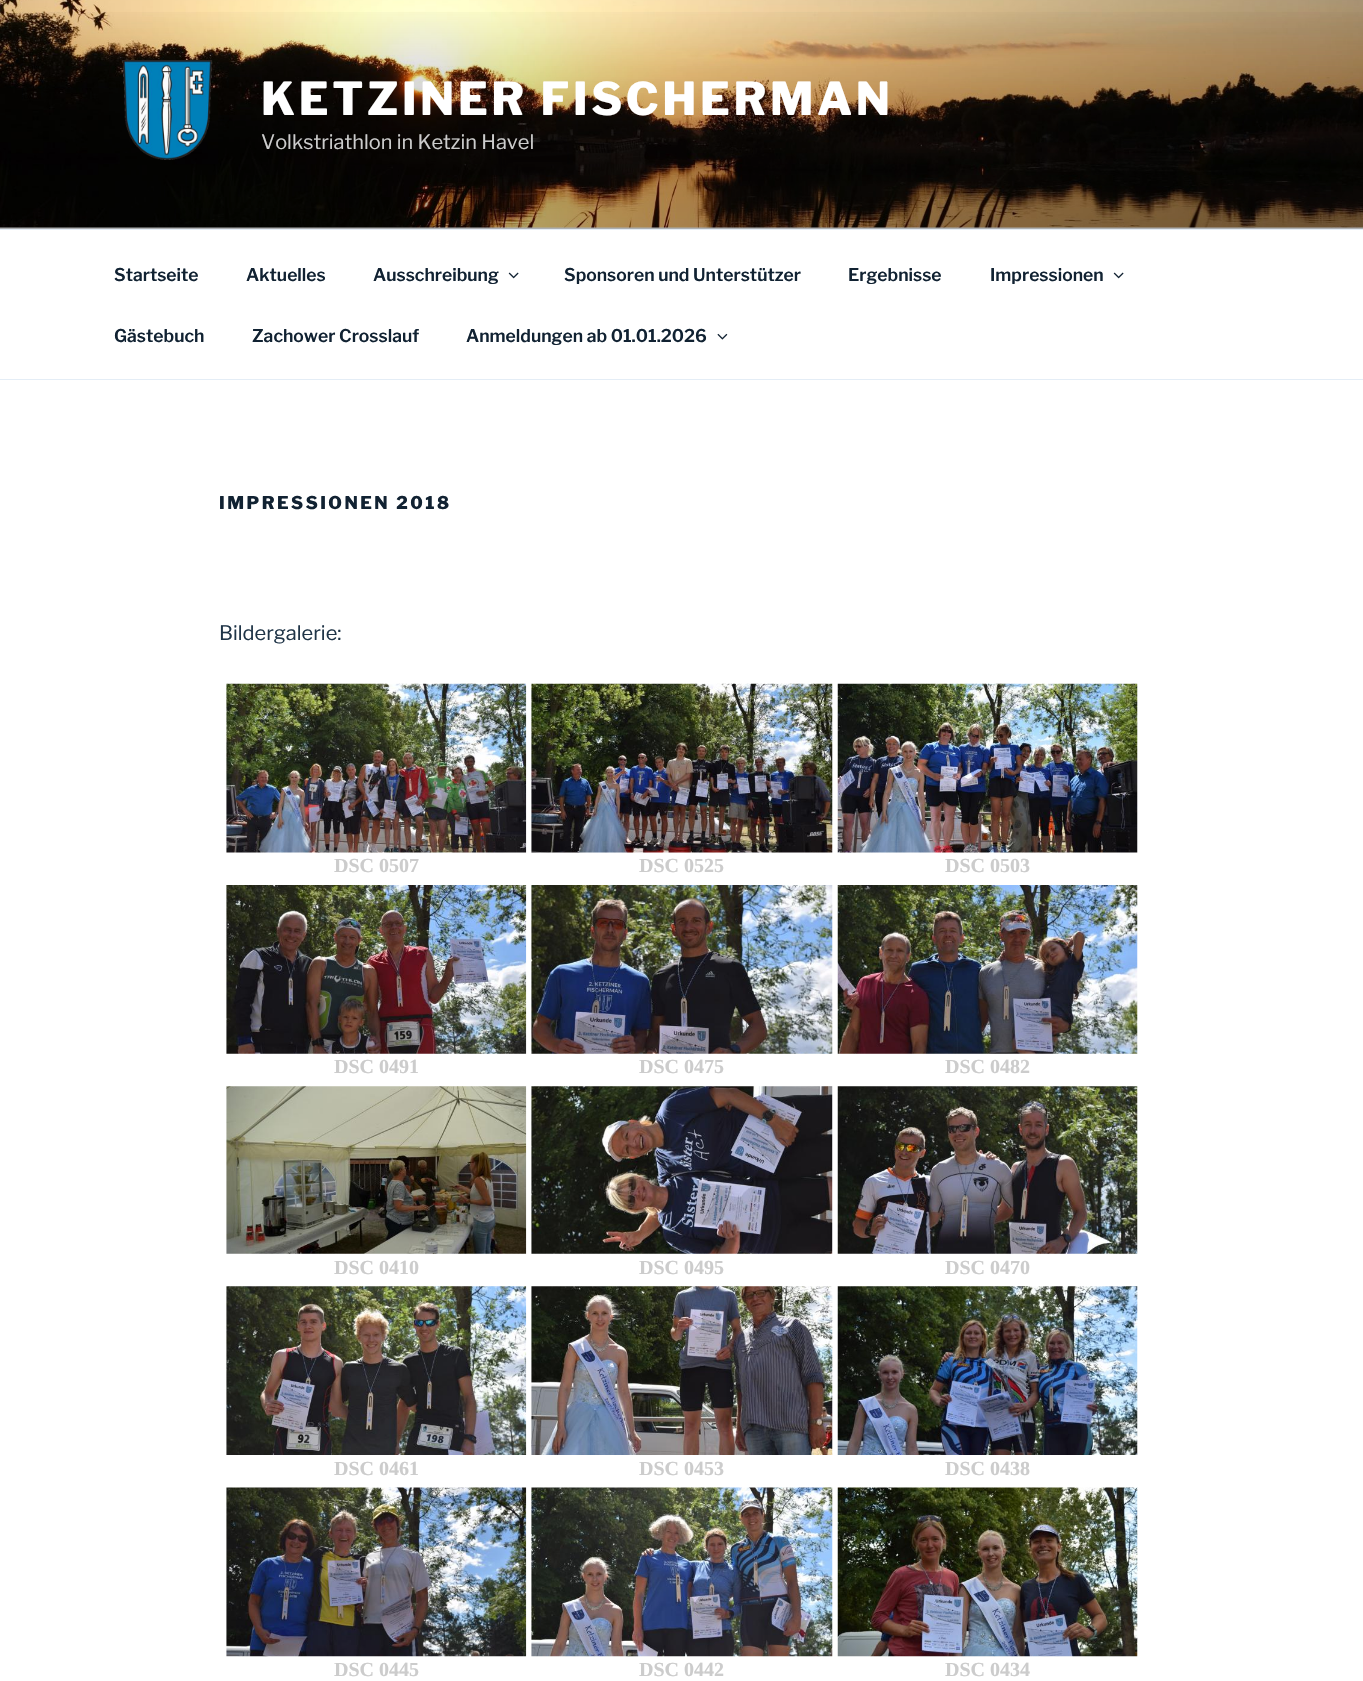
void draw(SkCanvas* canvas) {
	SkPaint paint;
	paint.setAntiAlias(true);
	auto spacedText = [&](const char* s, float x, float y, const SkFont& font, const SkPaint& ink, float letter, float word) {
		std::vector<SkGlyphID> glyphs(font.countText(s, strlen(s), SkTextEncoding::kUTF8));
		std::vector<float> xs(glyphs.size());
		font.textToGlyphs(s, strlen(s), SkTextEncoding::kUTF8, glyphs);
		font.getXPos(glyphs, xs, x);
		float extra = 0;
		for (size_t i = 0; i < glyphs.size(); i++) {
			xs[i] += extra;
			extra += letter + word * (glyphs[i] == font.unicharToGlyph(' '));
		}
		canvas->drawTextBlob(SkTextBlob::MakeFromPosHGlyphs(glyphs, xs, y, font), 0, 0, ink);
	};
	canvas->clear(0xffffffff);
	paint.setColor(0xfff7fafc);
	canvas->drawRect(SkRect::MakeXYWH(0, 227, 1363, 2), paint);
	canvas->drawImageRect(SkImages::DeferredFromEncodedData(SkData::MakeFromFileName("img1.png")), SkRect::MakeXYWH(0, 0, 1363, 228), SkSamplingOptions());
	{
		const SkColor colors[] = {0x00000000, 0x4d000000, 0x4d000000};
		const float stops[] = {0, 0.75, 1};
		const SkPoint ends[] = {{682, 0}, {682, 229}};
		paint.setShader(SkGradientShader::MakeLinear(ends, colors, stops, 3, SkTileMode::kClamp));
		paint.setAlpha(255);
	}
	canvas->drawRect(SkRect::MakeXYWH(0, 12, 1363, 217), paint);
	canvas->drawImageRect(SkImages::DeferredFromEncodedData(SkData::MakeFromFileName("img2.png")), SkRect::MakeXYWH(122, 60, 91, 100), SkSamplingOptions());
	SkFont f1(fontMgr->matchFamilyStyle("Libre Franklin", SkFontStyle(800, SkFontStyle::kNormal_Width, SkFontStyle::kUpright_Slant)), 45);
	f1.setSubpixel(true);
	paint.setShader(nullptr);
	paint.setColor(0xffffffff);
	spacedText("KETZINER FISCHERMAN", 261, 115, f1, paint, 3.6, 0);
	SkFont f2(fontMgr->matchFamilyStyle("Libre Franklin", SkFontStyle::Normal()), 20);
	f2.setSubpixel(true);
	paint.setColor(0xffcccccc);
	canvas->drawString("Volkstriathlon in Ketzin Havel", 261, 149, f2, paint);
	paint.setColor(0xffe4edf6);
	canvas->drawRect(SkRect::MakeXYWH(0, 229, 1363, 1), paint);
	canvas->drawRect(SkRect::MakeXYWH(0, 379, 1363, 1), paint);
	SkFont f3(fontMgr->matchFamilyStyle("Libre Franklin", SkFontStyle(600, SkFontStyle::kNormal_Width, SkFontStyle::kUpright_Slant)), 17.5);
	f3.setSubpixel(true);
	paint.setColor(0xff112232);
	canvas->drawString("Startseite", 114, 281, f3, paint);
	canvas->drawString("Aktuelles", 246, 281, f3, paint);
	canvas->drawString("Ausschreibung", 373, 281, f3, paint);
	canvas->drawImageRect(SkImages::DeferredFromEncodedData(SkData::MakeFromFileName("img3.png")), SkRect::MakeXYWH(508, 272, 11, 7), SkSamplingOptions());
	canvas->drawString("Sponsoren und Unterstützer", 564, 281, f3, paint);
	canvas->drawString("Ergebnisse", 848, 281, f3, paint);
	canvas->drawString("Impressionen", 990, 281, f3, paint);
	canvas->drawImageRect(SkImages::DeferredFromEncodedData(SkData::MakeFromFileName("img3.png")), SkRect::MakeXYWH(1113, 272, 11, 7), SkSamplingOptions());
	canvas->drawString("Gästebuch", 114, 342, f3, paint);
	canvas->drawString("Zachower Crosslauf", 252, 342, f3, paint);
	canvas->drawString("Anmeldungen ab 01.01.2026", 466, 342, f3, paint);
	canvas->drawImageRect(SkImages::DeferredFromEncodedData(SkData::MakeFromFileName("img4.png")), SkRect::MakeXYWH(717, 333, 11, 7), SkSamplingOptions());
	SkFont f4(fontMgr->matchFamilyStyle("Libre Franklin", SkFontStyle(800, SkFontStyle::kNormal_Width, SkFontStyle::kUpright_Slant)), 17.5);
	f4.setSubpixel(true);
	spacedText("IMPRESSIONEN 2018", 219, 509, f4, paint, 2.5, 0);
	paint.setColor(0xff1f3447);
	canvas->drawString("Bildergalerie:", 219, 640, f2, paint);
	canvas->drawImageRect(SkImages::DeferredFromEncodedData(SkData::MakeFromFileName("img5.png")), SkRect::MakeXYWH(226, 683, 301, 170), SkSamplingOptions());
	SkFont f5(fontMgr->matchFamilyStyle("Liberation Serif", SkFontStyle::Bold()), 20);
	f5.setSubpixel(true);
	paint.setColor(0xffcccccc);
	canvas->drawString("DSC 0507", 334, 872, f5, paint);
	canvas->drawImageRect(SkImages::DeferredFromEncodedData(SkData::MakeFromFileName("img6.png")), SkRect::MakeXYWH(531, 683, 302, 170), SkSamplingOptions());
	canvas->drawString("DSC 0525", 639, 872, f5, paint);
	canvas->drawImageRect(SkImages::DeferredFromEncodedData(SkData::MakeFromFileName("img7.png")), SkRect::MakeXYWH(837, 683, 301, 170), SkSamplingOptions());
	canvas->drawString("DSC 0503", 945, 872, f5, paint);
	canvas->drawImageRect(SkImages::DeferredFromEncodedData(SkData::MakeFromFileName("img8.png")), SkRect::MakeXYWH(226, 885, 301, 169), SkSamplingOptions());
	canvas->drawString("DSC 0491", 334, 1073, f5, paint);
	canvas->drawImageRect(SkImages::DeferredFromEncodedData(SkData::MakeFromFileName("img9.png")), SkRect::MakeXYWH(531, 885, 302, 169), SkSamplingOptions());
	canvas->drawString("DSC 0475", 639, 1073, f5, paint);
	canvas->drawImageRect(SkImages::DeferredFromEncodedData(SkData::MakeFromFileName("img10.png")), SkRect::MakeXYWH(837, 885, 301, 169), SkSamplingOptions());
	canvas->drawString("DSC 0482", 945, 1073, f5, paint);
	canvas->drawImageRect(SkImages::DeferredFromEncodedData(SkData::MakeFromFileName("img11.png")), SkRect::MakeXYWH(226, 1086, 301, 168), SkSamplingOptions());
	canvas->drawString("DSC 0410", 334, 1274, f5, paint);
	canvas->drawImageRect(SkImages::DeferredFromEncodedData(SkData::MakeFromFileName("img12.png")), SkRect::MakeXYWH(531, 1086, 302, 168), SkSamplingOptions());
	canvas->drawString("DSC 0495", 639, 1274, f5, paint);
	canvas->drawImageRect(SkImages::DeferredFromEncodedData(SkData::MakeFromFileName("img13.png")), SkRect::MakeXYWH(837, 1086, 301, 168), SkSamplingOptions());
	canvas->drawString("DSC 0470", 945, 1274, f5, paint);
	canvas->drawImageRect(SkImages::DeferredFromEncodedData(SkData::MakeFromFileName("img14.png")), SkRect::MakeXYWH(226, 1286, 301, 169), SkSamplingOptions());
	canvas->drawString("DSC 0461", 334, 1475, f5, paint);
	canvas->drawImageRect(SkImages::DeferredFromEncodedData(SkData::MakeFromFileName("img15.png")), SkRect::MakeXYWH(531, 1286, 302, 169), SkSamplingOptions());
	canvas->drawString("DSC 0453", 639, 1475, f5, paint);
	canvas->drawImageRect(SkImages::DeferredFromEncodedData(SkData::MakeFromFileName("img16.png")), SkRect::MakeXYWH(837, 1286, 301, 169), SkSamplingOptions());
	canvas->drawString("DSC 0438", 945, 1475, f5, paint);
	canvas->drawImageRect(SkImages::DeferredFromEncodedData(SkData::MakeFromFileName("img17.png")), SkRect::MakeXYWH(226, 1487, 301, 170), SkSamplingOptions());
	canvas->drawString("DSC 0445", 334, 1676, f5, paint);
	canvas->drawImageRect(SkImages::DeferredFromEncodedData(SkData::MakeFromFileName("img18.png")), SkRect::MakeXYWH(531, 1487, 302, 170), SkSamplingOptions());
	canvas->drawString("DSC 0442", 639, 1676, f5, paint);
	canvas->drawImageRect(SkImages::DeferredFromEncodedData(SkData::MakeFromFileName("img19.png")), SkRect::MakeXYWH(837, 1487, 301, 170), SkSamplingOptions());
	canvas->drawString("DSC 0434", 945, 1676, f5, paint);
}
